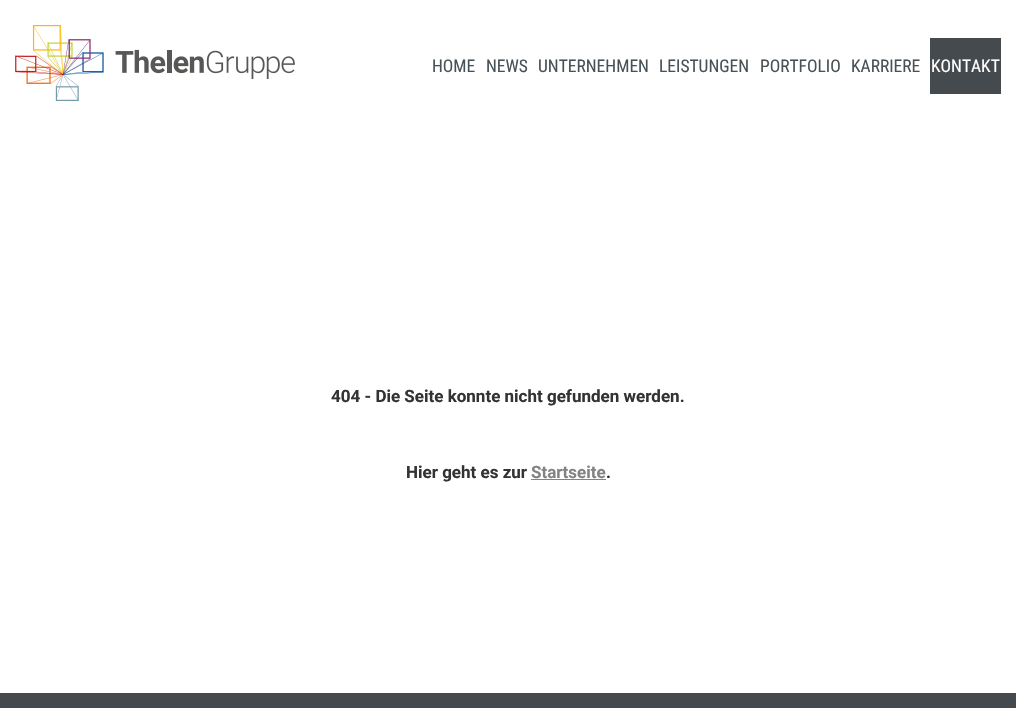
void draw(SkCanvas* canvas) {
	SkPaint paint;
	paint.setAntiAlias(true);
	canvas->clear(0xffffffff);
	canvas->drawImageRect(SkImages::DeferredFromEncodedData(SkData::MakeFromFileName("img1.png")), SkRect::MakeXYWH(15, 25, 280, 76), SkSamplingOptions());
	SkFont f1(fontMgr->matchFamilyStyle("Roboto Condensed", SkFontStyle::Normal()), 17.5);
	f1.setSubpixel(true);
	paint.setColor(0xff485156);
	canvas->drawString("HOME", 432, 72, f1, paint);
	canvas->drawString("NEWS", 486, 72, f1, paint);
	canvas->drawString("UNTERNEHMEN", 538, 72, f1, paint);
	canvas->drawString("LEISTUNGEN", 659, 72, f1, paint);
	canvas->drawString("PORTFOLIO", 760, 72, f1, paint);
	canvas->drawString("KARRIERE", 851, 72, f1, paint);
	paint.setColor(0xff454a4e);
	canvas->drawRect(SkRect::MakeXYWH(930, 38, 71, 56), paint);
	paint.setColor(0xffffffff);
	canvas->drawString("KONTAKT", 931, 72, f1, paint);
	SkFont f2(fontMgr->matchFamilyStyle("Roboto", SkFontStyle::Bold()), 17);
	f2.setSubpixel(true);
	paint.setColor(0xff333333);
	canvas->drawString("404 - Die Seite konnte nicht gefunden werden.", 331, 402, f2, paint);
	canvas->drawString("Hier geht es zur", 406, 478, f2, paint);
	paint.setColor(0xff838383);
	canvas->drawString("Startseite", 531, 478, f2, paint);
	canvas->drawRect(SkRect::MakeXYWH(531, 479, 75, 1), paint);
	paint.setColor(0xff333333);
	canvas->drawString(".", 606, 478, f2, paint);
	paint.setColor(0xff454a4e);
	canvas->drawRect(SkRect::MakeXYWH(0, 693, 1016, 15), paint);
}
